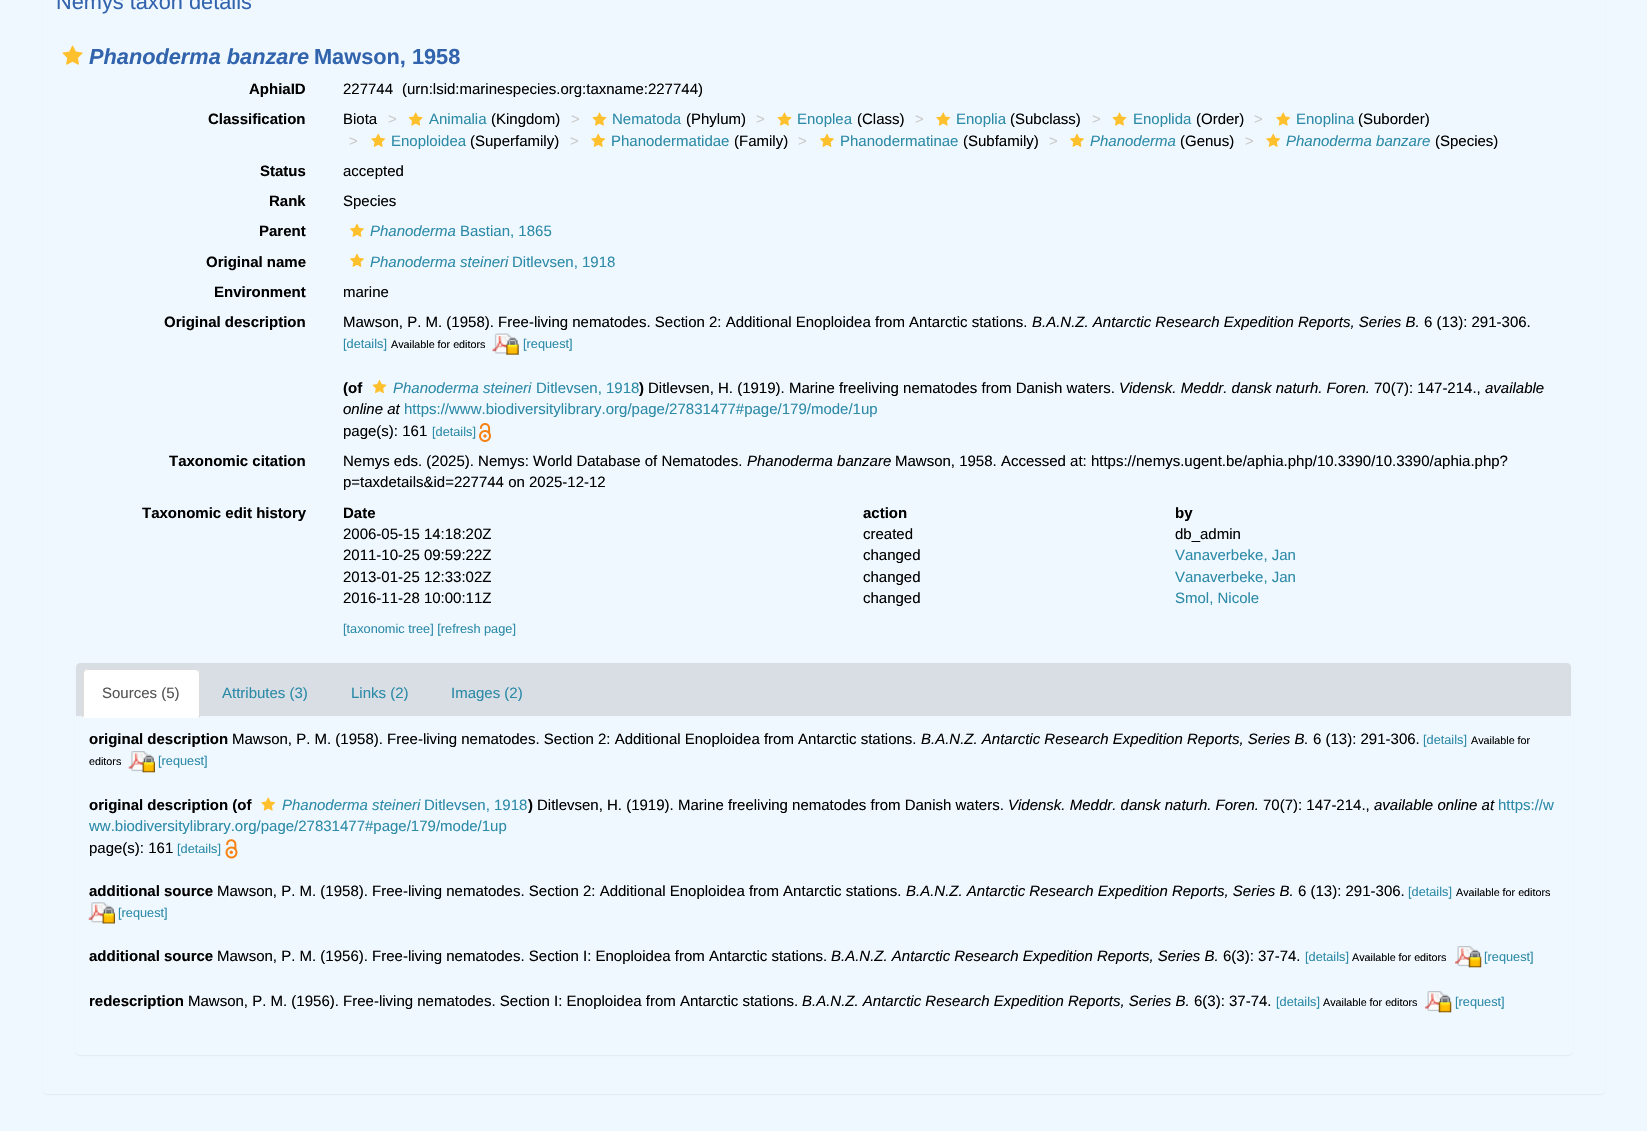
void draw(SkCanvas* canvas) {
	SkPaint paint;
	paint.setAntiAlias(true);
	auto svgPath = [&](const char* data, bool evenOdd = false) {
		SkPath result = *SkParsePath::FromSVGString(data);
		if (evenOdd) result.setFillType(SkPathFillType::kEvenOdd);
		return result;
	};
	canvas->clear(0xfff0f8ff);
	canvas->save();
	canvas->clipPath(svgPath("M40 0H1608V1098H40ZM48-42H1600C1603-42 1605-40 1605-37V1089C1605 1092 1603 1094 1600 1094H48C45 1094 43 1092 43 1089V-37C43-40 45-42 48-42Z", true), true);
	paint.setColor(0x0d000000);
	paint.setMaskFilter(SkMaskFilter::MakeBlur(kNormal_SkBlurStyle, 0.5));
	canvas->drawRoundRect(SkRect::MakeXYWH(43, -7, 1562, 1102), 5, 5, paint);
	paint.setMaskFilter(nullptr);
	canvas->restore();
	SkFont f1(fontMgr->matchFamilyStyle("Liberation Sans", SkFontStyle::Normal()), 21.75);
	f1.setSubpixel(true);
	paint.setColor(0xff3264ae);
	canvas->drawString("Nemys taxon details", 56, 9, f1, paint);
	canvas->drawImageRect(SkImages::DeferredFromEncodedData(SkData::MakeFromFileName("img1.png")), SkRect::MakeXYWH(62, 45, 21, 20), SkSamplingOptions());
	SkFont f2(fontMgr->matchFamilyStyle("Liberation Sans", SkFontStyle::BoldItalic()), 21.75);
	f2.setSubpixel(true);
	canvas->drawString("Phanoderma banzare", 89, 64, f2, paint);
	SkFont f3(fontMgr->matchFamilyStyle("Liberation Sans", SkFontStyle::Bold()), 21.75);
	f3.setSubpixel(true);
	canvas->drawString("Mawson, 1958", 314, 64, f3, paint);
	SkFont f4(fontMgr->matchFamilyStyle("Liberation Sans", SkFontStyle::Bold()), 15);
	f4.setSubpixel(true);
	paint.setColor(0xff000000);
	canvas->drawString("AphiaID", 249, 94, f4, paint);
	SkFont f5(fontMgr->matchFamilyStyle("Liberation Sans", SkFontStyle::Normal()), 15);
	f5.setSubpixel(true);
	canvas->drawString("227744", 343, 94, f5, paint);
	canvas->drawString("(urn:lsid:marinespecies.org:taxname:227744)", 402, 94, f5, paint);
	canvas->drawString("Classification", 208, 124, f4, paint);
	canvas->drawString("Biota", 343, 124, f5, paint);
	paint.setColor(0xffcccccc);
	canvas->drawString(">", 388, 124, f5, paint);
	canvas->drawImageRect(SkImages::DeferredFromEncodedData(SkData::MakeFromFileName("img2.png")), SkRect::MakeXYWH(408, 112, 15, 14), SkSamplingOptions());
	paint.setColor(0xff2d8ba8);
	canvas->drawString("Animalia", 429, 124, f5, paint);
	paint.setColor(0xff000000);
	canvas->drawString("(Kingdom)", 491, 124, f5, paint);
	paint.setColor(0xffcccccc);
	canvas->drawString(">", 571, 124, f5, paint);
	canvas->drawImageRect(SkImages::DeferredFromEncodedData(SkData::MakeFromFileName("img3.png")), SkRect::MakeXYWH(592, 112, 15, 14), SkSamplingOptions());
	paint.setColor(0xff2d8ba8);
	canvas->drawString("Nematoda", 612, 124, f5, paint);
	paint.setColor(0xff000000);
	canvas->drawString("(Phylum)", 686, 124, f5, paint);
	paint.setColor(0xffcccccc);
	canvas->drawString(">", 756, 124, f5, paint);
	canvas->drawImageRect(SkImages::DeferredFromEncodedData(SkData::MakeFromFileName("img3.png")), SkRect::MakeXYWH(777, 112, 15, 14), SkSamplingOptions());
	paint.setColor(0xff2d8ba8);
	canvas->drawString("Enoplea", 797, 124, f5, paint);
	paint.setColor(0xff000000);
	canvas->drawString("(Class)", 857, 124, f5, paint);
	paint.setColor(0xffcccccc);
	canvas->drawString(">", 915, 124, f5, paint);
	canvas->drawImageRect(SkImages::DeferredFromEncodedData(SkData::MakeFromFileName("img4.png")), SkRect::MakeXYWH(936, 112, 15, 14), SkSamplingOptions());
	paint.setColor(0xff2d8ba8);
	canvas->drawString("Enoplia", 956, 124, f5, paint);
	paint.setColor(0xff000000);
	canvas->drawString("(Subclass)", 1010, 124, f5, paint);
	paint.setColor(0xffcccccc);
	canvas->drawString(">", 1092, 124, f5, paint);
	canvas->drawImageRect(SkImages::DeferredFromEncodedData(SkData::MakeFromFileName("img3.png")), SkRect::MakeXYWH(1112, 112, 15, 14), SkSamplingOptions());
	paint.setColor(0xff2d8ba8);
	canvas->drawString("Enoplida", 1133, 124, f5, paint);
	paint.setColor(0xff000000);
	canvas->drawString("(Order)", 1196, 124, f5, paint);
	paint.setColor(0xffcccccc);
	canvas->drawString(">", 1254, 124, f5, paint);
	canvas->drawImageRect(SkImages::DeferredFromEncodedData(SkData::MakeFromFileName("img4.png")), SkRect::MakeXYWH(1276, 112, 15, 14), SkSamplingOptions());
	paint.setColor(0xff2d8ba8);
	canvas->drawString("Enoplina", 1296, 124, f5, paint);
	paint.setColor(0xff000000);
	canvas->drawString("(Suborder)", 1358, 124, f5, paint);
	paint.setColor(0xffcccccc);
	canvas->drawString(">", 349, 146, f5, paint);
	canvas->drawImageRect(SkImages::DeferredFromEncodedData(SkData::MakeFromFileName("img5.png")), SkRect::MakeXYWH(371, 133, 15, 14), SkSamplingOptions());
	paint.setColor(0xff2d8ba8);
	canvas->drawString("Enoploidea", 391, 146, f5, paint);
	paint.setColor(0xff000000);
	canvas->drawString("(Superfamily)", 470, 146, f5, paint);
	paint.setColor(0xffcccccc);
	canvas->drawString(">", 570, 146, f5, paint);
	canvas->drawImageRect(SkImages::DeferredFromEncodedData(SkData::MakeFromFileName("img5.png")), SkRect::MakeXYWH(591, 133, 15, 14), SkSamplingOptions());
	paint.setColor(0xff2d8ba8);
	canvas->drawString("Phanodermatidae", 611, 146, f5, paint);
	paint.setColor(0xff000000);
	canvas->drawString("(Family)", 734, 146, f5, paint);
	paint.setColor(0xffcccccc);
	canvas->drawString(">", 798, 146, f5, paint);
	canvas->drawImageRect(SkImages::DeferredFromEncodedData(SkData::MakeFromFileName("img6.png")), SkRect::MakeXYWH(820, 133, 14, 14), SkSamplingOptions());
	paint.setColor(0xff2d8ba8);
	canvas->drawString("Phanodermatinae", 840, 146, f5, paint);
	paint.setColor(0xff000000);
	canvas->drawString("(Subfamily)", 963, 146, f5, paint);
	paint.setColor(0xffcccccc);
	canvas->drawString(">", 1049, 146, f5, paint);
	canvas->drawImageRect(SkImages::DeferredFromEncodedData(SkData::MakeFromFileName("img6.png")), SkRect::MakeXYWH(1070, 133, 14, 14), SkSamplingOptions());
	SkFont f6(fontMgr->matchFamilyStyle("Liberation Sans", SkFontStyle::Italic()), 15);
	f6.setSubpixel(true);
	paint.setColor(0xff2d8ba8);
	canvas->drawString("Phanoderma", 1090, 146, f6, paint);
	paint.setColor(0xff000000);
	canvas->drawString("(Genus)", 1180, 146, f5, paint);
	paint.setColor(0xffcccccc);
	canvas->drawString(">", 1245, 146, f5, paint);
	canvas->drawImageRect(SkImages::DeferredFromEncodedData(SkData::MakeFromFileName("img5.png")), SkRect::MakeXYWH(1266, 133, 15, 14), SkSamplingOptions());
	paint.setColor(0xff2d8ba8);
	canvas->drawString("Phanoderma banzare", 1286, 146, f6, paint);
	paint.setColor(0xff000000);
	canvas->drawString("(Species)", 1435, 146, f5, paint);
	canvas->drawString("Status", 260, 176, f4, paint);
	canvas->drawString("accepted", 343, 176, f5, paint);
	canvas->drawString("Rank", 269, 206, f4, paint);
	canvas->drawString("Species", 343, 206, f5, paint);
	canvas->drawString("Parent", 259, 236, f4, paint);
	canvas->drawImageRect(SkImages::DeferredFromEncodedData(SkData::MakeFromFileName("img6.png")), SkRect::MakeXYWH(350, 223, 14, 14), SkSamplingOptions());
	paint.setColor(0xff2d8ba8);
	canvas->drawString("Phanoderma", 370, 236, f6, paint);
	canvas->drawString("Bastian, 1865", 460, 236, f5, paint);
	paint.setColor(0xff000000);
	canvas->drawString("Original name", 206, 267, f4, paint);
	canvas->drawImageRect(SkImages::DeferredFromEncodedData(SkData::MakeFromFileName("img6.png")), SkRect::MakeXYWH(350, 253, 14, 14), SkSamplingOptions());
	paint.setColor(0xff2d8ba8);
	canvas->drawString("Phanoderma steineri", 370, 267, f6, paint);
	canvas->drawString("Ditlevsen, 1918", 512, 267, f5, paint);
	paint.setColor(0xff000000);
	canvas->drawString("Environment", 214, 297, f4, paint);
	canvas->drawString("marine", 343, 297, f5, paint);
	canvas->drawString("Original description", 164, 327, f4, paint);
	canvas->drawString("Mawson, P. M. (1958). Free-living nematodes. Section 2: Additional Enoploidea from Antarctic stations.", 343, 327, f5, paint);
	canvas->drawString("B.A.N.Z. Antarctic Research Expedition Reports, Series B.", 1032, 327, f6, paint);
	canvas->drawString("6 (13): 291-306.", 1424, 327, f5, paint);
	SkFont f7(fontMgr->matchFamilyStyle("Liberation Sans", SkFontStyle::Normal()), 12.75);
	f7.setSubpixel(true);
	paint.setColor(0xff2d8ba8);
	canvas->drawString("[details]", 343, 348, f7, paint);
	SkFont f8(fontMgr->matchFamilyStyle("Liberation Sans", SkFontStyle::Normal()), 10.75);
	f8.setSubpixel(true);
	paint.setColor(0xff000000);
	canvas->drawString("Available for editors", 391, 348, f8, paint);
	canvas->drawImageRect(SkImages::DeferredFromEncodedData(SkData::MakeFromFileName("img7.png")), SkRect::MakeXYWH(492, 333, 27, 22), SkSamplingOptions());
	paint.setColor(0xff2d8ba8);
	canvas->drawString("[request]", 523, 348, f7, paint);
	paint.setColor(0xff000000);
	canvas->drawString("(of", 343, 393, f4, paint);
	canvas->drawImageRect(SkImages::DeferredFromEncodedData(SkData::MakeFromFileName("img8.png")), SkRect::MakeXYWH(372, 380, 15, 14), SkSamplingOptions());
	paint.setColor(0xff2d8ba8);
	canvas->drawString("Phanoderma steineri", 393, 393, f6, paint);
	canvas->drawString("Ditlevsen, 1918", 536, 393, f5, paint);
	paint.setColor(0xff000000);
	canvas->drawString(")", 639, 393, f4, paint);
	canvas->drawString("Ditlevsen, H. (1919). Marine freeliving nematodes from Danish waters.", 648, 393, f5, paint);
	canvas->drawString("Vidensk. Meddr. dansk naturh. Foren.", 1119, 393, f6, paint);
	canvas->drawString("70(7): 147-214.,", 1374, 393, f5, paint);
	canvas->drawString("available", 1485, 393, f6, paint);
	canvas->drawString("online at", 343, 414, f6, paint);
	paint.setColor(0xff2d8ba8);
	canvas->drawString("https://www.biodiversitylibrary.org/page/27831477#page/179/mode/1up", 404, 414, f5, paint);
	paint.setColor(0xff000000);
	canvas->drawString("page(s): 161", 343, 436, f5, paint);
	paint.setColor(0xff2d8ba8);
	canvas->drawString("[details]", 432, 436, f7, paint);
	canvas->drawImageRect(SkImages::DeferredFromEncodedData(SkData::MakeFromFileName("img9.png")), SkRect::MakeXYWH(479, 423, 12, 19), SkSamplingOptions());
	paint.setColor(0xff000000);
	canvas->drawString("Taxonomic citation", 169, 466, f4, paint);
	canvas->drawString("Nemys eds. (2025). Nemys: World Database of Nematodes.", 343, 466, f5, paint);
	canvas->drawString("Phanoderma banzare", 747, 466, f6, paint);
	canvas->drawString("Mawson, 1958. Accessed at: https://nemys.ugent.be/aphia.php/10.3390/10.3390/aphia.php?", 895, 466, f5, paint);
	canvas->drawString("p=taxdetails&id=227744 on 2025-12-12", 343, 487, f5, paint);
	canvas->drawString("Taxonomic edit history", 142, 518, f4, paint);
	canvas->drawString("Date", 343, 518, f4, paint);
	canvas->drawString("action", 863, 518, f4, paint);
	canvas->drawString("by", 1175, 518, f4, paint);
	canvas->drawString("2006-05-15 14:18:20Z", 343, 539, f5, paint);
	canvas->drawString("created", 863, 539, f5, paint);
	canvas->drawString("db_admin", 1175, 539, f5, paint);
	canvas->drawString("2011-10-25 09:59:22Z", 343, 560, f5, paint);
	canvas->drawString("changed", 863, 560, f5, paint);
	paint.setColor(0xff2d8ba8);
	canvas->drawString("Vanaverbeke, Jan", 1175, 560, f5, paint);
	paint.setColor(0xff000000);
	canvas->drawString("2013-01-25 12:33:02Z", 343, 582, f5, paint);
	canvas->drawString("changed", 863, 582, f5, paint);
	paint.setColor(0xff2d8ba8);
	canvas->drawString("Vanaverbeke, Jan", 1175, 582, f5, paint);
	paint.setColor(0xff000000);
	canvas->drawString("2016-11-28 10:00:11Z", 343, 603, f5, paint);
	canvas->drawString("changed", 863, 603, f5, paint);
	paint.setColor(0xff2d8ba8);
	canvas->drawString("Smol, Nicole", 1175, 603, f5, paint);
	canvas->drawString("[taxonomic tree] [refresh page]", 343, 633, f7, paint);
	canvas->save();
	canvas->clipPath(svgPath("M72 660H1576V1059H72ZM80 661H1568C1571 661 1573 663 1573 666V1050C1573 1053 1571 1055 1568 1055H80C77 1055 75 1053 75 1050V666C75 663 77 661 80 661Z", true), true);
	paint.setColor(0x0d000000);
	paint.setMaskFilter(SkMaskFilter::MakeBlur(kNormal_SkBlurStyle, 0.5));
	canvas->drawRoundRect(SkRect::MakeXYWH(75, 663, 1498, 393), 5, 5, paint);
	paint.setMaskFilter(nullptr);
	canvas->restore();
	paint.setColor(0xffd8dee4);
	canvas->drawPath(svgPath("M80 663H1567C1569 663 1571 665 1571 667V716H76V667C76 665 78 663 80 663Z"), paint);
	paint.setColor(0xffffffff);
	canvas->drawPath(svgPath("M88 669H195C198 669 200 671 200 674V718H83V674C83 671 85 669 88 669Z"), paint);
	paint.setColor(0xffdddddd);
	canvas->drawPath(svgPath("M88 669L84 670L85 671C86 670 87 670 88 670H195L198 671V670C198 669 196 669 195 669Z"), paint);
	canvas->drawPath(svgPath("M198 670C199 671 200 672 200 674V718L198 716H199V674C199 673 198 672 198 671Z"), paint);
	canvas->drawPath(svgPath("M82 718L84 716V674C84 673 84 672 85 671L84 670L82 672Z"), paint);
	paint.setColor(0xff555555);
	canvas->drawString("Sources (5)", 102, 698, f5, paint);
	paint.setColor(0xff2d8ba8);
	canvas->drawString("Attributes (3)", 222, 698, f5, paint);
	canvas->drawString("Links (2)", 351, 698, f5, paint);
	canvas->drawString("Images (2)", 451, 698, f5, paint);
	paint.setColor(0xff000000);
	canvas->drawString("original description", 89, 744, f4, paint);
	canvas->drawString("Mawson, P. M. (1958). Free-living nematodes. Section 2: Additional Enoploidea from Antarctic stations.", 232, 744, f5, paint);
	canvas->drawString("B.A.N.Z. Antarctic Research Expedition Reports, Series B.", 921, 744, f6, paint);
	canvas->drawString("6 (13): 291-306.", 1313, 744, f5, paint);
	paint.setColor(0xff2d8ba8);
	canvas->drawString("[details]", 1423, 744, f7, paint);
	paint.setColor(0xff000000);
	canvas->drawString("Available for", 1471, 744, f8, paint);
	canvas->drawString("editors", 89, 765, f8, paint);
	canvas->drawImageRect(SkImages::DeferredFromEncodedData(SkData::MakeFromFileName("img10.png")), SkRect::MakeXYWH(128, 751, 27, 22), SkSamplingOptions());
	paint.setColor(0xff2d8ba8);
	canvas->drawString("[request]", 158, 765, f7, paint);
	canvas->drawImageRect(SkImages::DeferredFromEncodedData(SkData::MakeFromFileName("img4.png")), SkRect::MakeXYWH(261, 797, 15, 14), SkSamplingOptions());
	canvas->drawString("Phanoderma steineri", 282, 810, f6, paint);
	canvas->drawString("Ditlevsen, 1918", 424, 810, f5, paint);
	paint.setColor(0xff000000);
	canvas->drawString(")", 528, 810, f4, paint);
	canvas->drawString("Ditlevsen, H. (1919). Marine freeliving nematodes from Danish waters.", 537, 810, f5, paint);
	canvas->drawString("Vidensk. Meddr. dansk naturh. Foren.", 1008, 810, f6, paint);
	canvas->drawString("70(7): 147-214.,", 1263, 810, f5, paint);
	canvas->drawString("available online at", 1374, 810, f6, paint);
	paint.setColor(0xff2d8ba8);
	canvas->drawString("https://w", 1498, 810, f5, paint);
	canvas->drawString("ww.biodiversitylibrary.org/page/27831477#page/179/mode/1up", 89, 831, f5, paint);
	paint.setColor(0xff000000);
	canvas->drawString("page(s): 161", 89, 853, f5, paint);
	paint.setColor(0xff2d8ba8);
	canvas->drawString("[details]", 177, 853, f7, paint);
	canvas->drawImageRect(SkImages::DeferredFromEncodedData(SkData::MakeFromFileName("img11.png")), SkRect::MakeXYWH(225, 839, 13, 20), SkSamplingOptions());
	paint.setColor(0xff000000);
	canvas->drawString("original description (of", 89, 810, f4, paint);
	canvas->drawString("additional source", 89, 896, f4, paint);
	canvas->drawString("Mawson, P. M. (1958). Free-living nematodes. Section 2: Additional Enoploidea from Antarctic stations.", 217, 896, f5, paint);
	canvas->drawString("B.A.N.Z. Antarctic Research Expedition Reports, Series B.", 906, 896, f6, paint);
	canvas->drawString("6 (13): 291-306.", 1298, 896, f5, paint);
	paint.setColor(0xff2d8ba8);
	canvas->drawString("[details]", 1408, 896, f7, paint);
	paint.setColor(0xff000000);
	canvas->drawString("Available for editors", 1456, 896, f8, paint);
	canvas->drawImageRect(SkImages::DeferredFromEncodedData(SkData::MakeFromFileName("img12.png")), SkRect::MakeXYWH(88, 902, 27, 22), SkSamplingOptions());
	paint.setColor(0xff2d8ba8);
	canvas->drawString("[request]", 118, 917, f7, paint);
	paint.setColor(0xff000000);
	canvas->drawString("additional source", 89, 961, f4, paint);
	canvas->drawString("Mawson, P. M. (1956). Free-living nematodes. Section I: Enoploidea from Antarctic stations.", 217, 961, f5, paint);
	canvas->drawString("B.A.N.Z. Antarctic Research Expedition Reports, Series B.", 831, 961, f6, paint);
	canvas->drawString("6(3): 37-74.", 1223, 961, f5, paint);
	paint.setColor(0xff2d8ba8);
	canvas->drawString("[details]", 1305, 961, f7, paint);
	paint.setColor(0xff000000);
	canvas->drawString("Available for editors", 1352, 961, f8, paint);
	canvas->drawImageRect(SkImages::DeferredFromEncodedData(SkData::MakeFromFileName("img13.png")), SkRect::MakeXYWH(1455, 946, 27, 22), SkSamplingOptions());
	paint.setColor(0xff2d8ba8);
	canvas->drawString("[request]", 1484, 961, f7, paint);
	paint.setColor(0xff000000);
	canvas->drawString("redescription", 89, 1006, f4, paint);
	canvas->drawString("Mawson, P. M. (1956). Free-living nematodes. Section I: Enoploidea from Antarctic stations.", 188, 1006, f5, paint);
	canvas->drawString("B.A.N.Z. Antarctic Research Expedition Reports, Series B.", 802, 1006, f6, paint);
	canvas->drawString("6(3): 37-74.", 1194, 1006, f5, paint);
	paint.setColor(0xff2d8ba8);
	canvas->drawString("[details]", 1276, 1006, f7, paint);
	paint.setColor(0xff000000);
	canvas->drawString("Available for editors", 1323, 1006, f8, paint);
	canvas->drawImageRect(SkImages::DeferredFromEncodedData(SkData::MakeFromFileName("img13.png")), SkRect::MakeXYWH(1425, 991, 27, 22), SkSamplingOptions());
	paint.setColor(0xff2d8ba8);
	canvas->drawString("[request]", 1455, 1006, f7, paint);
}
